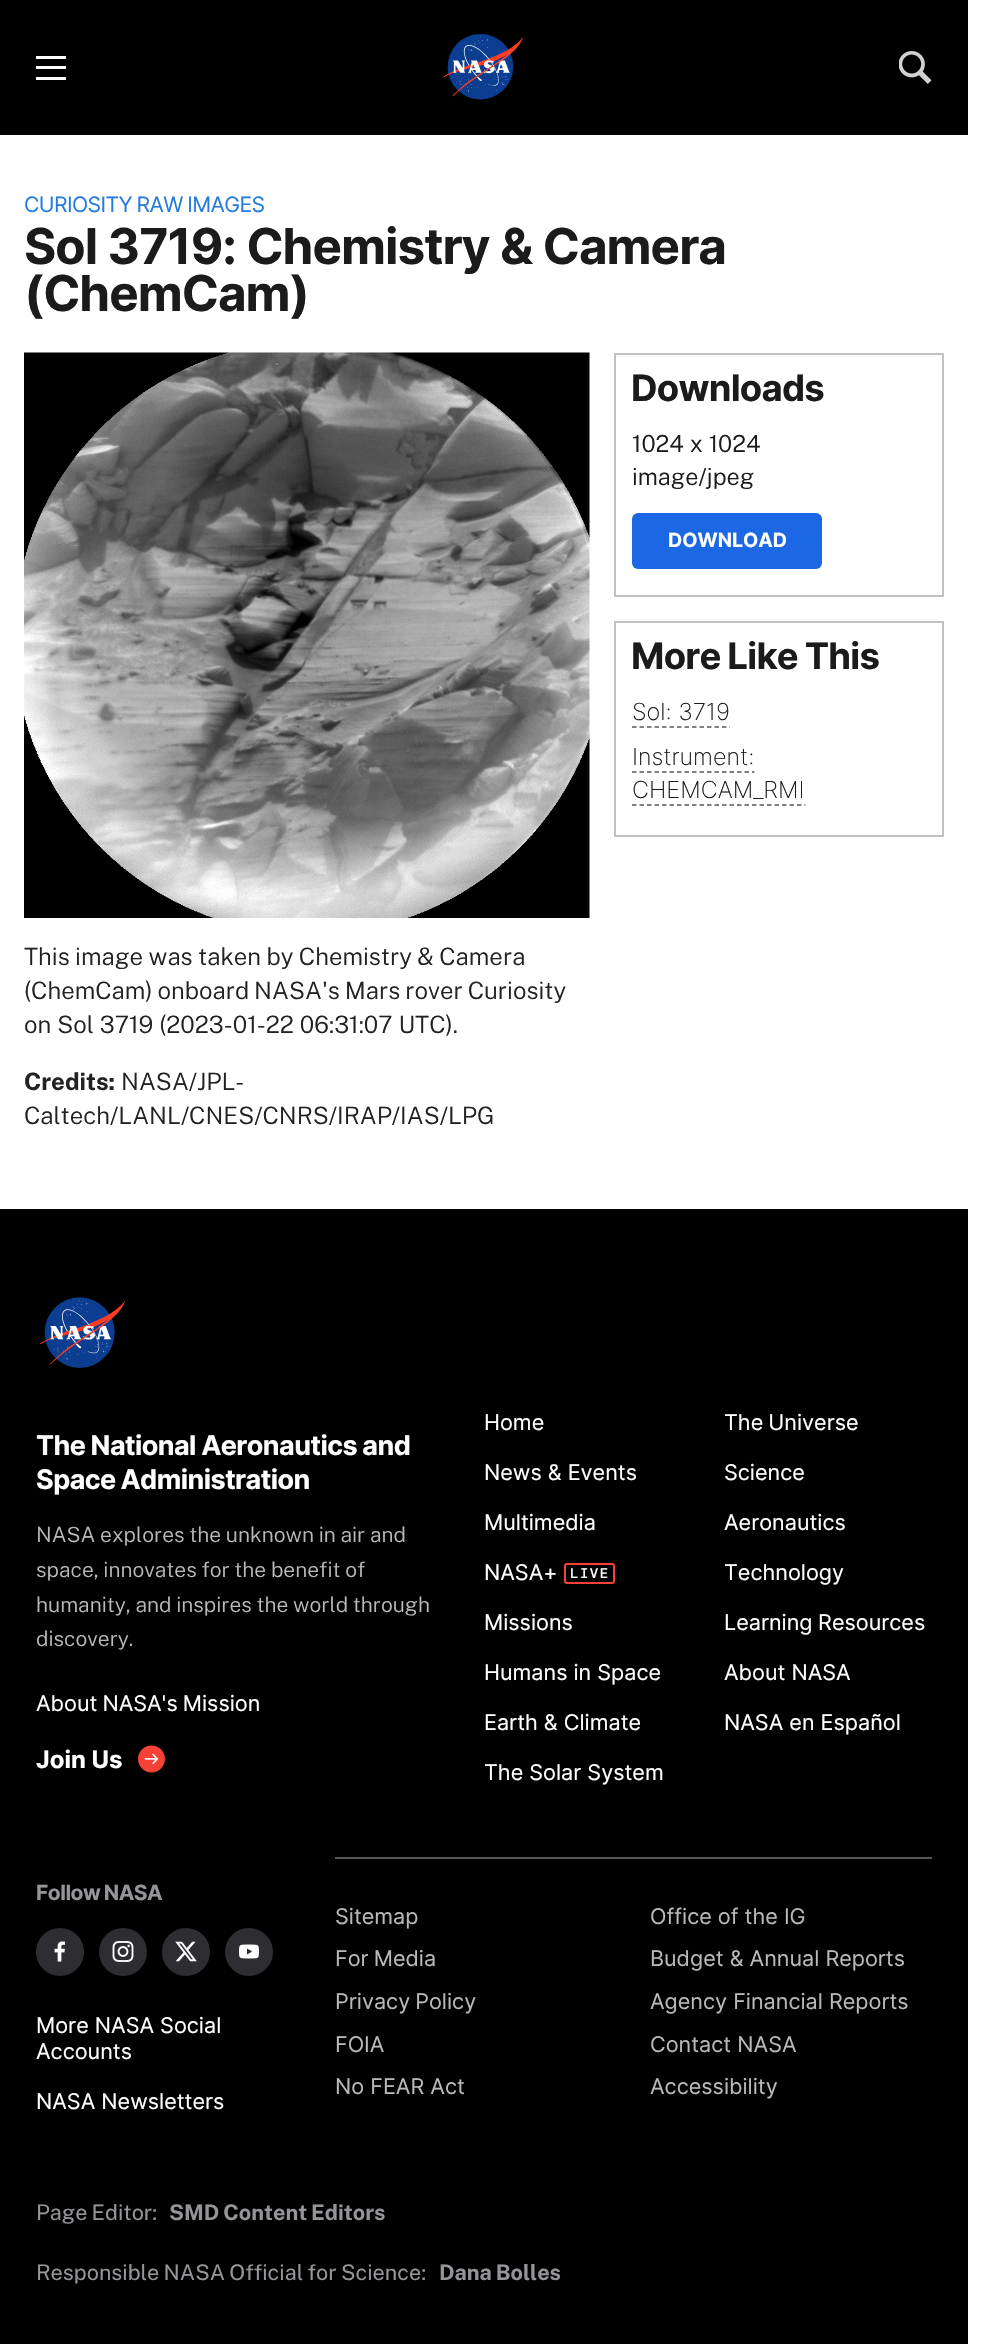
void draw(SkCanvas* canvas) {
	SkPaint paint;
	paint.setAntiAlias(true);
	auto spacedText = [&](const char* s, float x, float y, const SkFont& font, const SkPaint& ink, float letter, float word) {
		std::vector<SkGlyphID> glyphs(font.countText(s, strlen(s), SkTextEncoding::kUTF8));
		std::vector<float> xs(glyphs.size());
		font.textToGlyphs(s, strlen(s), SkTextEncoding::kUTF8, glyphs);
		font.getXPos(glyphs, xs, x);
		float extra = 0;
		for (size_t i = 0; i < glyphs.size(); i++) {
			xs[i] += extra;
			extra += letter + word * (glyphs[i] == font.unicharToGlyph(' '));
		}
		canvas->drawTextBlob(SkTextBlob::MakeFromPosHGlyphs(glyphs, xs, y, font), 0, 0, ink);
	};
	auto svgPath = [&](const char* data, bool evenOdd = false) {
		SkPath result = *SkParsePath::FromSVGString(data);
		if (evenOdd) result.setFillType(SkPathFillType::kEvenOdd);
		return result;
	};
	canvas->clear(0xffffffff);
	paint.setColor(0xff000000);
	canvas->drawRect(SkRect::MakeXYWH(0, 0, 968, 135), paint);
	paint.setColor(0xffffffff);
	canvas->drawRect(SkRect::MakeXYWH(36, 56, 30, 3), paint);
	canvas->drawRect(SkRect::MakeXYWH(36, 66, 30, 3), paint);
	canvas->drawRect(SkRect::MakeXYWH(36, 77, 30, 3), paint);
	canvas->drawImageRect(SkImages::DeferredFromEncodedData(SkData::MakeFromFileName("img1.png")), SkRect::MakeXYWH(443, 34, 81, 66), SkSamplingOptions());
	canvas->drawImageRect(SkImages::DeferredFromEncodedData(SkData::MakeFromFileName("img2.png")), SkRect::MakeXYWH(899, 51, 33, 33), SkSamplingOptions());
	SkFont f1(fontMgr->matchFamilyStyle("Inter", SkFontStyle::Normal()), 21.25);
	f1.setSubpixel(true);
	paint.setColor(0xff257cdf);
	spacedText("CURIOSITY RAW IMAGES", 24, 212, f1, paint, -0.6, -1);
	SkFont f2(fontMgr->matchFamilyStyle("Inter", SkFontStyle::Bold()), 49.4);
	f2.setSubpixel(true);
	paint.setColor(0xff1b1b1b);
	spacedText("Sol 3719: Chemistry & Camera", 24, 264, f2, paint, -1, 0);
	spacedText("(ChemCam)", 24, 311, f2, paint, -1, 0);
	paint.setStroke(true);
	paint.setStrokeWidth(2);
	paint.setColor(0xffc1c1c1);
	canvas->drawRect(SkRect::MakeXYWH(615, 354, 328, 242), paint);
	SkFont f3(fontMgr->matchFamilyStyle("Inter", SkFontStyle::Bold()), 36.5);
	f3.setSubpixel(true);
	paint.setStroke(false);
	paint.setColor(0xff1b1b1b);
	spacedText("Downloads", 631, 401, f3, paint, -0.75, 0);
	SkFont f4(fontMgr->matchFamilyStyle("Public Sans", SkFontStyle(300, SkFontStyle::kNormal_Width, SkFontStyle::kUpright_Slant)), 23.5);
	f4.setSubpixel(true);
	canvas->drawString("1024 x 1024", 632, 452, f4, paint);
	canvas->drawString("image/jpeg", 632, 485, f4, paint);
	paint.setColor(0xff1c67e3);
	canvas->drawRoundRect(SkRect::MakeXYWH(632, 513, 190, 56), 6, 6, paint);
	SkFont f5(fontMgr->matchFamilyStyle("Inter", SkFontStyle::Bold()), 19.5);
	f5.setSubpixel(true);
	paint.setColor(0xffffffff);
	canvas->drawString("DOWNLOAD", 668, 547, f5, paint);
	paint.setStroke(true);
	paint.setColor(0xffc1c1c1);
	canvas->drawRect(SkRect::MakeXYWH(615, 622, 328, 214), paint);
	paint.setStroke(false);
	paint.setColor(0xff1b1b1b);
	spacedText("More Like This", 631, 669, f3, paint, -0.75, -1);
	SkFont f6(fontMgr->matchFamilyStyle("Inter", SkFontStyle(200, SkFontStyle::kNormal_Width, SkFontStyle::kUpright_Slant)), 23.5);
	f6.setSubpixel(true);
	canvas->drawString("Sol: 3719", 632, 720, f6, paint);
	paint.setStroke(true);
	paint.setStrokeWidth(1.5);
	paint.setColor(0xff58585b);
	paint.setPathEffect(SkDashPathEffect::Make({{4.5f, 3}}, 0));
	canvas->drawPath(svgPath("M632 727H730"), paint);
	paint.setPathEffect(nullptr);
	paint.setStroke(false);
	paint.setColor(0xff1b1b1b);
	canvas->drawString("Instrument:", 632, 765, f6, paint);
	paint.setStroke(true);
	paint.setColor(0xff58585b);
	paint.setPathEffect(SkDashPathEffect::Make({{4.5f, 3}}, 0));
	canvas->drawPath(svgPath("M632 772H754.5"), paint);
	paint.setPathEffect(nullptr);
	paint.setStroke(false);
	paint.setColor(0xff1b1b1b);
	canvas->drawString("CHEMCAM_RMI", 632, 798, f6, paint);
	paint.setStroke(true);
	paint.setColor(0xff58585b);
	paint.setPathEffect(SkDashPathEffect::Make({{4.5f, 3}}, 0));
	canvas->drawPath(svgPath("M632 805H805.5"), paint);
	paint.setPathEffect(nullptr);
	canvas->drawImageRect(SkImages::DeferredFromEncodedData(SkData::MakeFromFileName("img3.png")), SkRect::MakeXYWH(24, 352, 566, 566), SkSamplingOptions());
	SkFont f7(fontMgr->matchFamilyStyle("Public Sans", SkFontStyle(300, SkFontStyle::kNormal_Width, SkFontStyle::kUpright_Slant)), 24);
	f7.setSubpixel(true);
	paint.setStroke(false);
	paint.setColor(0xff222222);
	spacedText("This image was taken by Chemistry & Camera", 24, 965, f7, paint, 0, -0.5);
	spacedText("(ChemCam) onboard NASA's Mars rover Curiosity", 24, 999, f7, paint, 0, -1);
	canvas->drawString("on Sol 3719 (2023-01-22 06:31:07 UTC).", 24, 1033, f7, paint);
	SkFont f8(fontMgr->matchFamilyStyle("Public Sans", SkFontStyle::Bold()), 24);
	f8.setSubpixel(true);
	canvas->drawString("Credits:", 24, 1090, f8, paint);
	canvas->drawString("NASA/JPL-", 121, 1090, f7, paint);
	canvas->drawString("Caltech/LANL/CNES/CNRS/IRAP/IAS/LPG", 24, 1124, f7, paint);
	paint.setColor(0xff000000);
	canvas->drawRect(SkRect::MakeXYWH(0, 1209, 968, 1135), paint);
	canvas->drawImageRect(SkImages::DeferredFromEncodedData(SkData::MakeFromFileName("img4.png")), SkRect::MakeXYWH(40, 1297, 86, 71), SkSamplingOptions());
	SkFont f9(fontMgr->matchFamilyStyle("Inter", SkFontStyle::Bold()), 27);
	f9.setSubpixel(true);
	paint.setColor(0xffffffff);
	spacedText("The National Aeronautics and", 36, 1455, f9, paint, -0.55, -0.5);
	spacedText("Space Administration", 36, 1489, f9, paint, -0.55, -1);
	SkFont f10(fontMgr->matchFamilyStyle("Public Sans", SkFontStyle(300, SkFontStyle::kNormal_Width, SkFontStyle::kUpright_Slant)), 21);
	f10.setSubpixel(true);
	paint.setColor(0xffb9b9bb);
	spacedText("NASA explores the unknown in air and", 36, 1542, f10, paint, 0, -0.5);
	spacedText("space, innovates for the benefit of", 36, 1577, f10, paint, 0, -0.5);
	spacedText("humanity, and inspires the world through", 36, 1612, f10, paint, 0, -0.5);
	canvas->drawString("discovery.", 36, 1646, f10, paint);
	SkFont f11(fontMgr->matchFamilyStyle("Inter", SkFontStyle::Normal()), 21.6);
	f11.setSubpixel(true);
	paint.setColor(0xffffffff);
	spacedText("About NASA's Mission", 36, 1711, f11, paint, 0, -1);
	SkFont f12(fontMgr->matchFamilyStyle("Inter", SkFontStyle::Bold()), 24);
	f12.setSubpixel(true);
	canvas->drawString("Join Us", 36, 1768, f12, paint);
	canvas->drawImageRect(SkImages::DeferredFromEncodedData(SkData::MakeFromFileName("img5.png")), SkRect::MakeXYWH(138, 1745, 27, 28), SkSamplingOptions());
	canvas->drawString("Home", 484, 1430, f11, paint);
	spacedText("The Universe", 724, 1430, f11, paint, 0, -1);
	canvas->drawString("News & Events", 484, 1480, f11, paint);
	canvas->drawString("Science", 724, 1480, f11, paint);
	canvas->drawString("Multimedia", 484, 1530, f11, paint);
	canvas->drawString("Aeronautics", 724, 1530, f11, paint);
	canvas->drawString("NASA+", 484, 1580, f11, paint);
	paint.setStroke(true);
	paint.setStrokeWidth(2);
	paint.setColor(0xfff64137);
	canvas->drawRoundRect(SkRect::MakeXYWH(565, 1564, 49, 19), 2, 2, paint);
	SkFont f13(fontMgr->matchFamilyStyle("DM Mono", SkFontStyle(500, SkFontStyle::kNormal_Width, SkFontStyle::kUpright_Slant)), 14);
	f13.setSubpixel(true);
	paint.setStroke(false);
	paint.setColor(0xffffffff);
	spacedText("LIVE", 570, 1578, f13, paint, 1.5, 0);
	canvas->drawString("Technology", 724, 1580, f11, paint);
	canvas->drawString("Missions", 484, 1630, f11, paint);
	spacedText("Learning Resources", 724, 1630, f11, paint, 0, -0.5);
	canvas->drawString("Humans in Space", 484, 1680, f11, paint);
	canvas->drawString("About NASA", 724, 1680, f11, paint);
	canvas->drawString("Earth & Climate", 484, 1730, f11, paint);
	canvas->drawString("NASA en Español", 724, 1730, f11, paint);
	canvas->drawString("The Solar System", 484, 1780, f11, paint);
	SkFont f14(fontMgr->matchFamilyStyle("Inter", SkFontStyle::Bold()), 21);
	f14.setSubpixel(true);
	paint.setColor(0xff959599);
	spacedText("Follow NASA", 36, 1900, f14, paint, -0.5, -1);
	paint.setColor(0xff2e2e32);
	canvas->drawCircle(60, 1952, 24, paint);
	canvas->drawImageRect(SkImages::DeferredFromEncodedData(SkData::MakeFromFileName("img6.png")), SkRect::MakeXYWH(54, 1941, 11, 21), SkSamplingOptions());
	canvas->drawCircle(123, 1952, 24, paint);
	canvas->drawImageRect(SkImages::DeferredFromEncodedData(SkData::MakeFromFileName("img7.png")), SkRect::MakeXYWH(112, 1941, 22, 21), SkSamplingOptions());
	canvas->drawCircle(186, 1952, 24, paint);
	canvas->drawImageRect(SkImages::DeferredFromEncodedData(SkData::MakeFromFileName("img8.png")), SkRect::MakeXYWH(175, 1941, 22, 21), SkSamplingOptions());
	canvas->drawCircle(249, 1952, 24, paint);
	canvas->drawImageRect(SkImages::DeferredFromEncodedData(SkData::MakeFromFileName("img9.png")), SkRect::MakeXYWH(239, 1944, 20, 15), SkSamplingOptions());
	paint.setColor(0xffffffff);
	canvas->drawString("More NASA Social", 36, 2033, f11, paint);
	canvas->drawString("Accounts", 36, 2059, f11, paint);
	canvas->drawString("NASA Newsletters", 36, 2109, f11, paint);
	paint.setColor(0xff58585b);
	canvas->drawRect(SkRect::MakeXYWH(335, 1857, 597, 2), paint);
	paint.setColor(0xffb9b9bb);
	canvas->drawString("Sitemap", 335, 1924, f11, paint);
	canvas->drawString("Office of the IG", 650, 1924, f11, paint);
	spacedText("For Media", 335, 1966, f11, paint, 0, -1);
	canvas->drawString("Budget & Annual Reports", 650, 1966, f11, paint);
	spacedText("Privacy Policy", 335, 2009, f11, paint, 0, -1);
	canvas->drawString("Agency Financial Reports", 650, 2009, f11, paint);
	canvas->drawString("FOIA", 335, 2052, f11, paint);
	canvas->drawString("Contact NASA", 650, 2052, f11, paint);
	canvas->drawString("No FEAR Act", 335, 2094, f11, paint);
	canvas->drawString("Accessibility", 650, 2094, f11, paint);
	SkFont f15(fontMgr->matchFamilyStyle("Public Sans", SkFontStyle::Normal()), 21.6);
	f15.setSubpixel(true);
	paint.setColor(0xff959599);
	spacedText("Page Editor:", 36, 2220, f15, paint, 0, -1);
	SkFont f16(fontMgr->matchFamilyStyle("Public Sans", SkFontStyle::Bold()), 21.6);
	f16.setSubpixel(true);
	spacedText("SMD Content Editors", 169, 2220, f16, paint, 0, -1);
	spacedText("Responsible NASA Official for Science:", 36, 2280, f15, paint, 0, -1);
	spacedText("Dana Bolles", 439, 2280, f16, paint, 0, -1);
}
